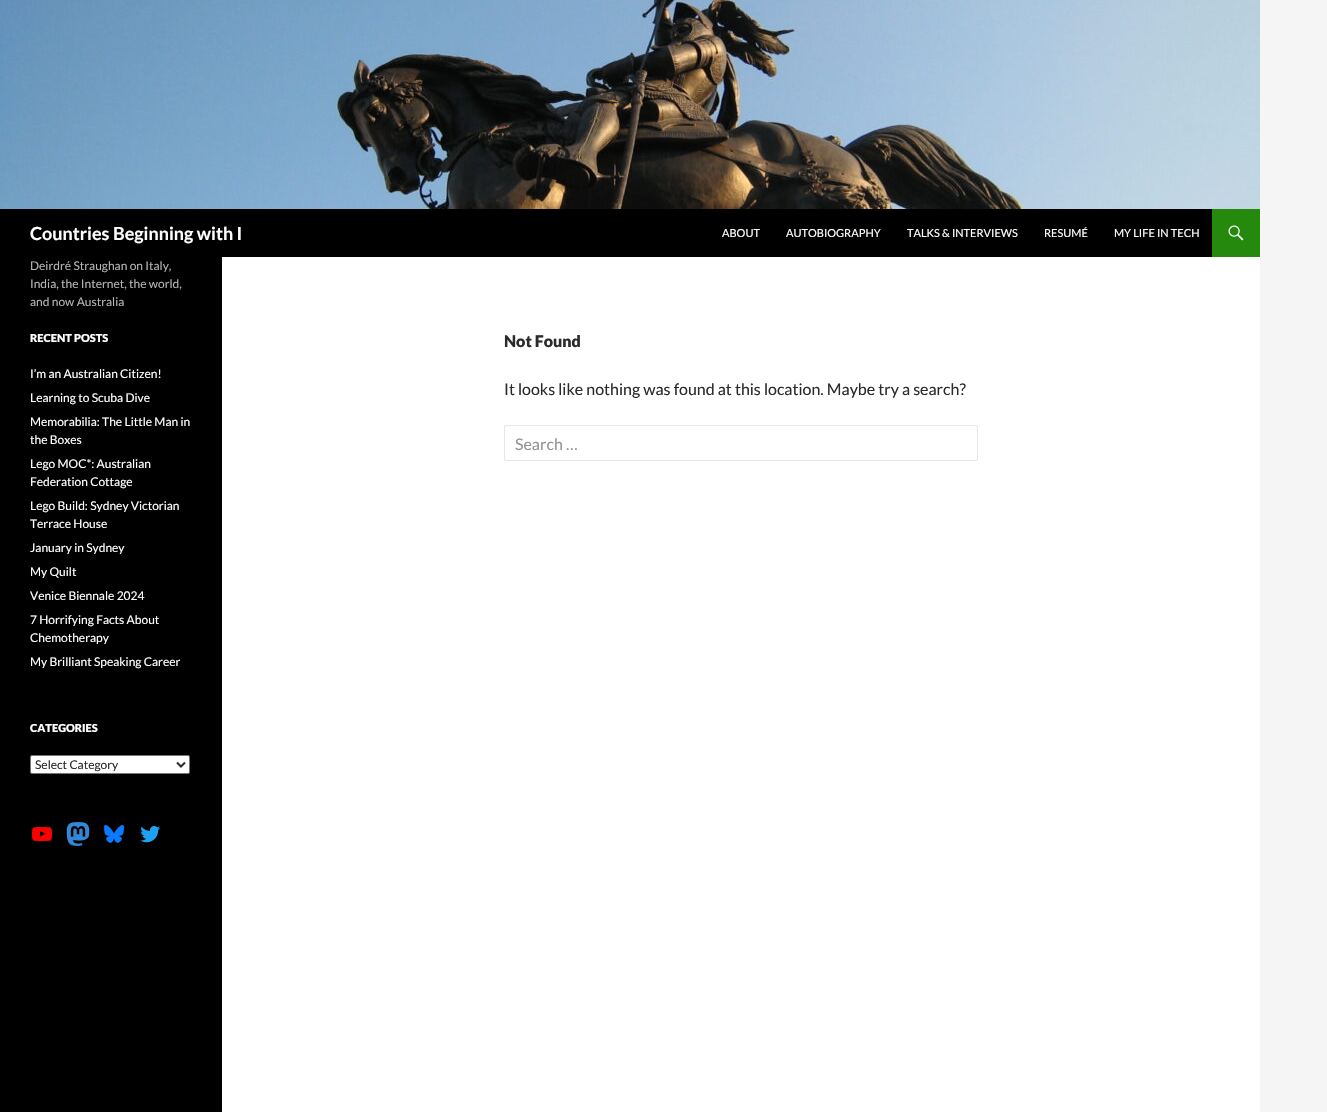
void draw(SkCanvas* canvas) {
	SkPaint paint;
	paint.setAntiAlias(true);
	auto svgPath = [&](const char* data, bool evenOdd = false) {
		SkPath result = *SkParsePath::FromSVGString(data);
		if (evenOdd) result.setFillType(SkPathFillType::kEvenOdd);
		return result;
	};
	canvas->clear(0xfff5f5f5);
	paint.setColor(0xffffffff);
	canvas->drawRect(SkRect::MakeXYWH(222, 257, 1038, 855), paint);
	canvas->drawImageRect(SkImages::DeferredFromEncodedData(SkData::MakeFromFileName("img1.png")), SkRect::MakeXYWH(0, 0, 1260, 209), SkSamplingOptions());
	paint.setColor(0xff000000);
	canvas->drawRect(SkRect::MakeXYWH(0, 209, 1212, 48), paint);
	SkFont f1(fontMgr->matchFamilyStyle("Lato", SkFontStyle::Bold()), 18);
	f1.setSubpixel(true);
	paint.setColor(0xffffffff);
	canvas->drawString("Countries Beginning with I", 30, 240, f1, paint);
	SkFont f2(fontMgr->matchFamilyStyle("Lato", SkFontStyle::Normal()), 11);
	f2.setSubpixel(true);
	canvas->drawString("ABOUT", 722, 237, f2, paint);
	canvas->drawString("AUTOBIOGRAPHY", 786, 237, f2, paint);
	canvas->drawString("TALKS & INTERVIEWS", 907, 237, f2, paint);
	canvas->drawString("RESUMÉ", 1044, 237, f2, paint);
	canvas->drawString("MY LIFE IN TECH", 1114, 237, f2, paint);
	paint.setColor(0xff24890d);
	canvas->drawRect(SkRect::MakeXYWH(1212, 209, 48, 48), paint);
	canvas->drawImageRect(SkImages::DeferredFromEncodedData(SkData::MakeFromFileName("img2.png")), SkRect::MakeXYWH(1228, 225, 16, 16), SkSamplingOptions());
	paint.setColor(0xff000000);
	canvas->drawRect(SkRect::MakeXYWH(0, 257, 222, 855), paint);
	SkFont f3(fontMgr->matchFamilyStyle("Lato", SkFontStyle::Normal()), 12);
	f3.setSubpixel(true);
	paint.setColor(0xffb3b3b3);
	canvas->drawString("Deirdré Straughan on Italy,", 30, 270, f3, paint);
	canvas->drawString("India, the Internet, the world,", 30, 288, f3, paint);
	canvas->drawString("and now Australia", 30, 306, f3, paint);
	SkFont f4(fontMgr->matchFamilyStyle("Lato", SkFontStyle(900, SkFontStyle::kNormal_Width, SkFontStyle::kUpright_Slant)), 11);
	f4.setSubpixel(true);
	paint.setColor(0xffffffff);
	canvas->drawString("RECENT POSTS", 30, 342, f4, paint);
	canvas->drawString("I’m an Australian Citizen!", 30, 378, f3, paint);
	canvas->drawString("Learning to Scuba Dive", 30, 402, f3, paint);
	canvas->drawString("Memorabilia: The Little Man in", 30, 426, f3, paint);
	canvas->drawString("the Boxes", 30, 444, f3, paint);
	canvas->drawString("Lego MOC*: Australian", 30, 468, f3, paint);
	canvas->drawString("Federation Cottage", 30, 486, f3, paint);
	canvas->drawString("Lego Build: Sydney Victorian", 30, 510, f3, paint);
	canvas->drawString("Terrace House", 30, 528, f3, paint);
	canvas->drawString("January in Sydney", 30, 552, f3, paint);
	canvas->drawString("My Quilt", 30, 576, f3, paint);
	canvas->drawString("Venice Biennale 2024", 30, 600, f3, paint);
	canvas->drawString("7 Horrifying Facts About", 30, 624, f3, paint);
	canvas->drawString("Chemotherapy", 30, 642, f3, paint);
	canvas->drawString("My Brilliant Speaking Career", 30, 666, f3, paint);
	canvas->drawString("CATEGORIES", 30, 732, f4, paint);
	canvas->drawRoundRect(SkRect::MakeXYWH(30.5, 755.5, 159, 18), 1.5, 1.5, paint);
	paint.setStroke(true);
	paint.setStrokeWidth(1);
	paint.setColor(0xff767676);
	canvas->drawRoundRect(SkRect::MakeXYWH(30.5, 755.5, 159, 18), 1.5, 1.5, paint);
	paint.setStrokeWidth(2);
	paint.setColor(0xff2b2b2b);
	canvas->drawPath(svgPath("M177 762.5L181 766.5L185 762.5"), paint);
	paint.setStroke(false);
	canvas->drawString("Select Category", 35, 769, f3, paint);
	canvas->drawImageRect(SkImages::DeferredFromEncodedData(SkData::MakeFromFileName("img3.png")), SkRect::MakeXYWH(32, 827, 20, 14), SkSamplingOptions());
	canvas->drawImageRect(SkImages::DeferredFromEncodedData(SkData::MakeFromFileName("img4.png")), SkRect::MakeXYWH(66, 822, 24, 24), SkSamplingOptions());
	canvas->drawImageRect(SkImages::DeferredFromEncodedData(SkData::MakeFromFileName("img5.png")), SkRect::MakeXYWH(104, 825, 20, 18), SkSamplingOptions());
	canvas->drawImageRect(SkImages::DeferredFromEncodedData(SkData::MakeFromFileName("img6.png")), SkRect::MakeXYWH(140, 826, 20, 17), SkSamplingOptions());
	SkFont f5(fontMgr->matchFamilyStyle("Lato", SkFontStyle(900, SkFontStyle::kNormal_Width, SkFontStyle::kUpright_Slant)), 16);
	f5.setSubpixel(true);
	canvas->drawString("Not Found", 504, 347, f5, paint);
	SkFont f6(fontMgr->matchFamilyStyle("Lato", SkFontStyle::Normal()), 16);
	f6.setSubpixel(true);
	canvas->drawString("It looks like nothing was found at this location. Maybe try a search?", 504, 395, f6, paint);
	paint.setStroke(true);
	paint.setStrokeWidth(1);
	paint.setColor(0xffe6e6e6);
	canvas->drawRoundRect(SkRect::MakeXYWH(504.5, 425.5, 473, 35), 1.5, 1.5, paint);
	paint.setStroke(false);
	paint.setColor(0xff939393);
	canvas->drawString("Search …", 515, 450, f6, paint);
}
